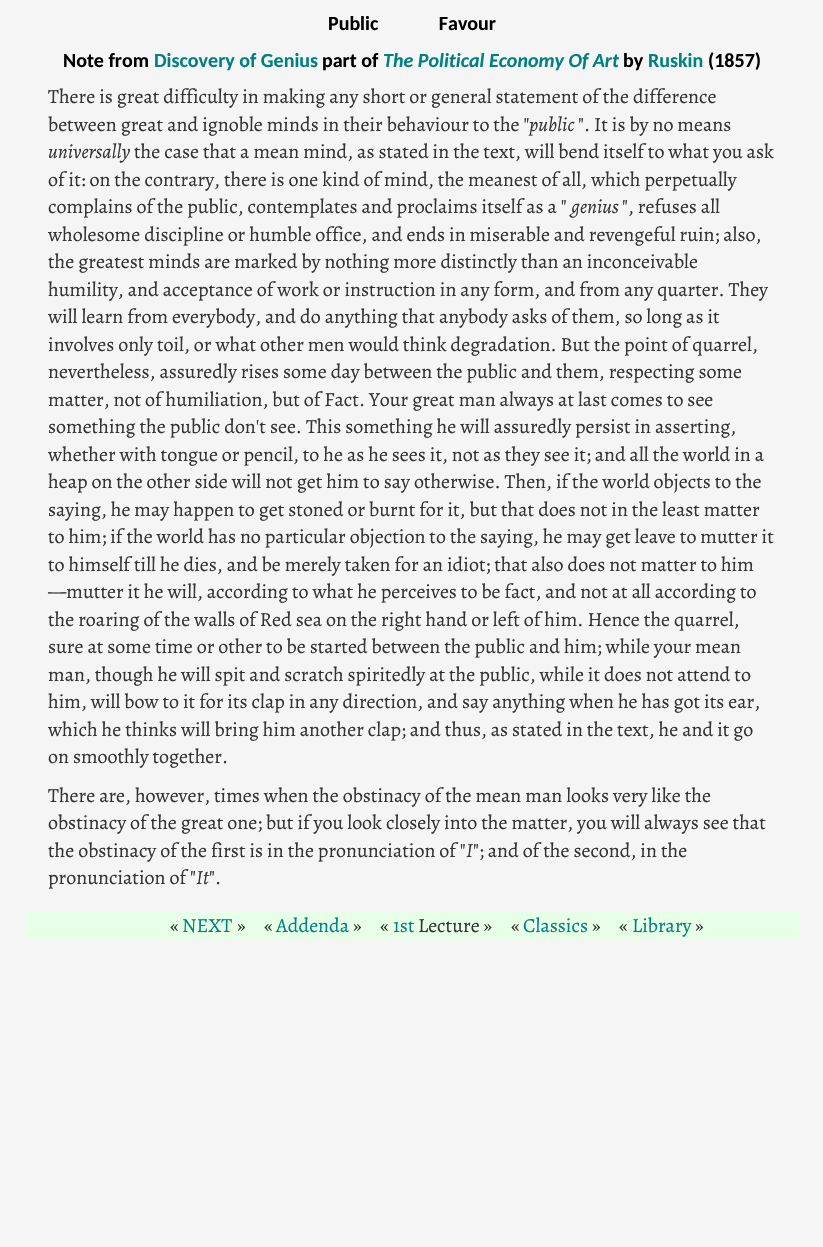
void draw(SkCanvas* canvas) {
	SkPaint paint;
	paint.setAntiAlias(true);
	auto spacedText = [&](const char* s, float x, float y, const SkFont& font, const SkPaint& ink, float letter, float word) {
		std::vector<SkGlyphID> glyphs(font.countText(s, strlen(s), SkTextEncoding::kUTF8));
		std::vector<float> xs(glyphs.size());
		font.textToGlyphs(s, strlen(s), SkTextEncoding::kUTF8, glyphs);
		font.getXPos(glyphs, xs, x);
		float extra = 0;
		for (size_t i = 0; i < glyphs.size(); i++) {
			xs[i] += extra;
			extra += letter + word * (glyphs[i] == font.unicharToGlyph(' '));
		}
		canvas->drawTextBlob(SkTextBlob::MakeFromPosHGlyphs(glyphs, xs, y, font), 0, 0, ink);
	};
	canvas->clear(0xfff5f5f5);
	SkFont f1(fontMgr->matchFamilyStyle("Carlito", SkFontStyle::Bold()), 20);
	f1.setSubpixel(true);
	paint.setColor(0xff000000);
	spacedText("Public Favour", 328, 30, f1, paint, 0, 56);
	canvas->drawString("Note from", 63, 67, f1, paint);
	paint.setColor(0xff008080);
	canvas->drawString("Discovery of Genius", 154, 67, f1, paint);
	paint.setColor(0xff000000);
	canvas->drawString("part of", 322, 67, f1, paint);
	SkFont f2(fontMgr->matchFamilyStyle("Carlito", SkFontStyle::BoldItalic()), 20);
	f2.setSubpixel(true);
	paint.setColor(0xff008080);
	canvas->drawString("The Political Economy Of Art", 383, 67, f2, paint);
	paint.setColor(0xff000000);
	canvas->drawString("by", 623, 67, f1, paint);
	paint.setColor(0xff008080);
	canvas->drawString("Ruskin", 648, 67, f1, paint);
	paint.setColor(0xff000000);
	canvas->drawString("(1857)", 708, 67, f1, paint);
	SkFont f3(fontMgr->matchFamilyStyle("Alegreya", SkFontStyle::Normal()), 20);
	f3.setSubpixel(true);
	paint.setColor(0xff333333);
	canvas->drawString("There is great difficulty in making any short or general statement of the difference", 48, 103, f3, paint);
	canvas->drawString("between great and ignoble minds in their behaviour to the \"", 48, 131, f3, paint);
	SkFont f4(fontMgr->matchFamilyStyle("Alegreya", SkFontStyle::Italic()), 20);
	f4.setSubpixel(true);
	canvas->drawString("public", 529, 131, f4, paint);
	canvas->drawString("\". It is by no means", 578, 131, f3, paint);
	canvas->drawString("universally", 48, 158, f4, paint);
	canvas->drawString("the case that a mean mind, as stated in the text, will bend itself to what you ask", 134, 158, f3, paint);
	canvas->drawString("of it: on the contrary, there is one kind of mind, the meanest of all, which perpetually", 48, 186, f3, paint);
	canvas->drawString("complains of the public, contemplates and proclaims itself as a \"", 48, 213, f3, paint);
	canvas->drawString("genius", 571, 213, f4, paint);
	canvas->drawString("\", refuses all", 622, 213, f3, paint);
	canvas->drawString("wholesome discipline or humble office, and ends in miserable and revengeful ruin; also,", 48, 241, f3, paint);
	canvas->drawString("the greatest minds are marked by nothing more distinctly than an inconceivable", 48, 268, f3, paint);
	canvas->drawString("humility, and acceptance of work or instruction in any form, and from any quarter. They", 48, 296, f3, paint);
	canvas->drawString("will learn from everybody, and do anything that anybody asks of them, so long as it", 48, 323, f3, paint);
	canvas->drawString("involves only toil, or what other men would think degradation. But the point of quarrel,", 48, 351, f3, paint);
	canvas->drawString("nevertheless, assuredly rises some day between the public and them, respecting some", 48, 378, f3, paint);
	canvas->drawString("matter, not of humiliation, but of Fact. Your great man always at last comes to see", 48, 406, f3, paint);
	canvas->drawString("something the public don't see. This something he will assuredly persist in asserting,", 48, 433, f3, paint);
	canvas->drawString("whether with tongue or pencil, to he as he sees it, not as they see it; and all the world in a", 48, 461, f3, paint);
	canvas->drawString("heap on the other side will not get him to say otherwise. Then, if the world objects to the", 48, 488, f3, paint);
	canvas->drawString("saying, he may happen to get stoned or burnt for it, but that does not in the least matter", 48, 516, f3, paint);
	canvas->drawString("to him; if the world has no particular objection to the saying, he may get leave to mutter it", 48, 543, f3, paint);
	canvas->drawString("to himself till he dies, and be merely taken for an idiot; that also does not matter to him", 48, 571, f3, paint);
	canvas->drawString("—mutter it he will, according to what he perceives to be fact, and not at all according to", 48, 598, f3, paint);
	canvas->drawString("the roaring of the walls of Red sea on the right hand or left of him. Hence the quarrel,", 48, 626, f3, paint);
	canvas->drawString("sure at some time or other to be started between the public and him; while your mean", 48, 653, f3, paint);
	canvas->drawString("man, though he will spit and scratch spiritedly at the public, while it does not attend to", 48, 681, f3, paint);
	canvas->drawString("him, will bow to it for its clap in any direction, and say anything when he has got its ear,", 48, 708, f3, paint);
	canvas->drawString("which he thinks will bring him another clap; and thus, as stated in the text, he and it go", 48, 736, f3, paint);
	canvas->drawString("on smoothly together.", 48, 763, f3, paint);
	canvas->drawString("There are, however, times when the obstinacy of the mean man looks very like the", 48, 802, f3, paint);
	canvas->drawString("obstinacy of the great one; but if you look closely into the matter, you will always see that", 48, 829, f3, paint);
	canvas->drawString("the obstinacy of the first is in the pronunciation of \"", 48, 857, f3, paint);
	canvas->drawString("I", 466, 857, f4, paint);
	canvas->drawString("\"; and of the second, in the", 473, 857, f3, paint);
	canvas->drawString("pronunciation of \"", 48, 884, f3, paint);
	canvas->drawString("It", 196, 884, f4, paint);
	canvas->drawString("\".", 209, 884, f3, paint);
	paint.setColor(0xffe6ffe6);
	canvas->drawRect(SkRect::MakeXYWH(25, 911, 774, 28), paint);
	paint.setColor(0xff333333);
	canvas->drawString("«", 170, 932, f3, paint);
	paint.setColor(0xff008080);
	canvas->drawString("NEXT", 182, 932, f3, paint);
	paint.setColor(0xff333333);
	canvas->drawString("»", 237, 932, f3, paint);
	canvas->drawString("«", 264, 932, f3, paint);
	paint.setColor(0xff008080);
	canvas->drawString("Addenda", 276, 932, f3, paint);
	paint.setColor(0xff333333);
	canvas->drawString("»", 353, 932, f3, paint);
	canvas->drawString("«", 380, 932, f3, paint);
	paint.setColor(0xff008080);
	canvas->drawString("1st", 393, 932, f3, paint);
	paint.setColor(0xff333333);
	canvas->drawString("Lecture »", 418, 932, f3, paint);
	canvas->drawString("«", 511, 932, f3, paint);
	paint.setColor(0xff008080);
	canvas->drawString("Classics", 523, 932, f3, paint);
	paint.setColor(0xff333333);
	canvas->drawString("»", 592, 932, f3, paint);
	canvas->drawString("«", 619, 932, f3, paint);
	paint.setColor(0xff008080);
	canvas->drawString("Library", 632, 932, f3, paint);
	paint.setColor(0xff333333);
	canvas->drawString("»", 695, 932, f3, paint);
}
